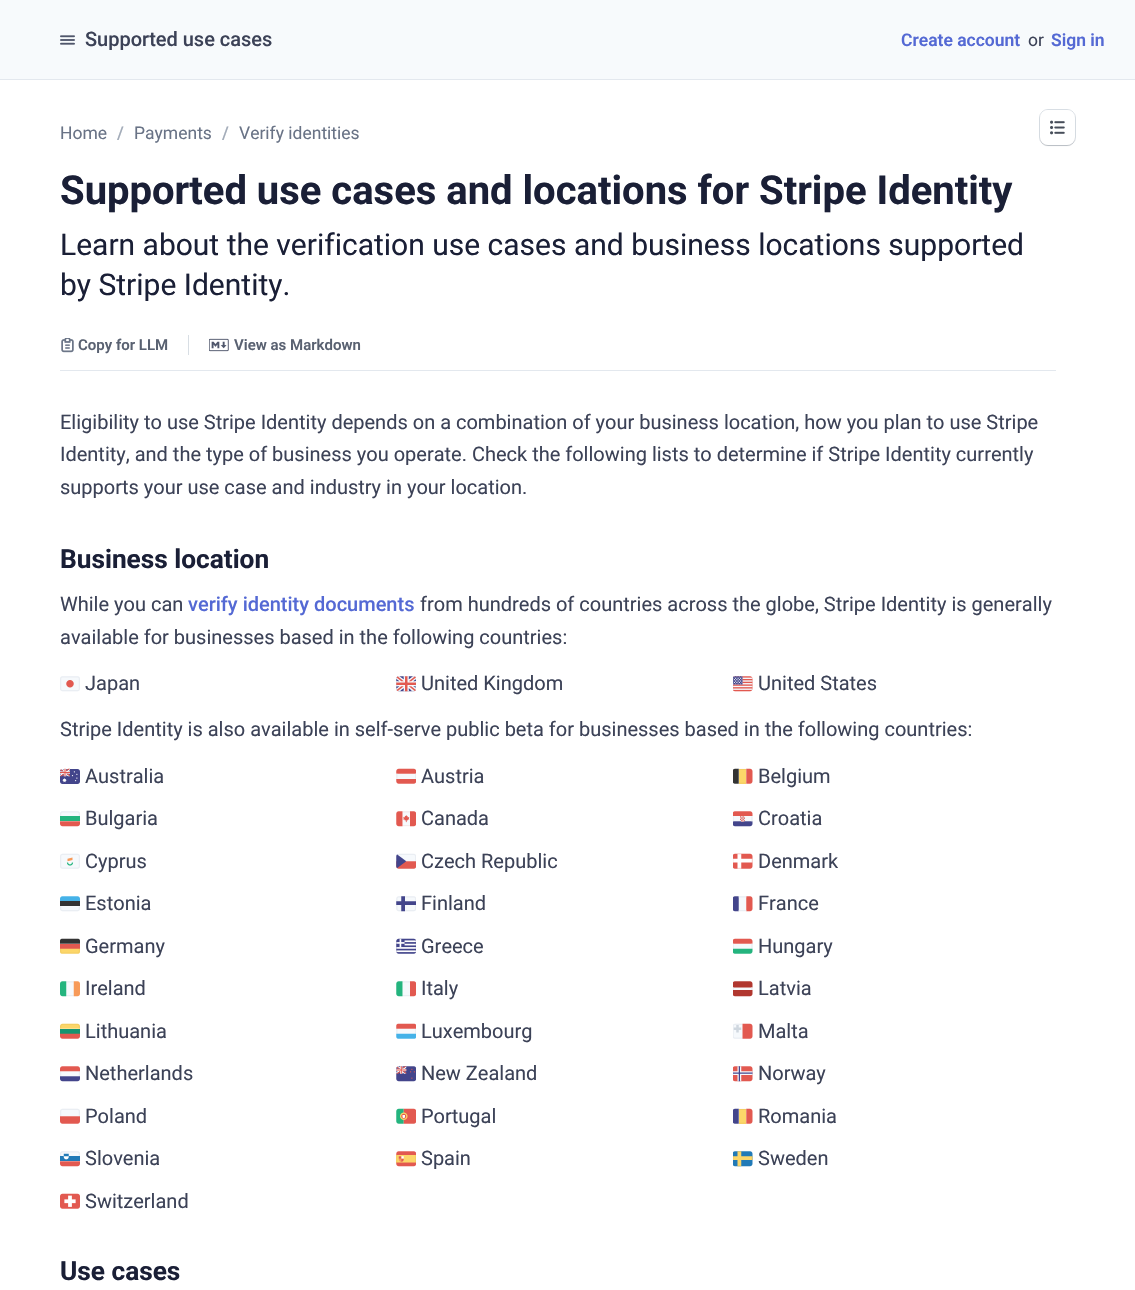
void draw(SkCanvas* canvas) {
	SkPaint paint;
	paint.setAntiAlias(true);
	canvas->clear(0xffffffff);
	paint.setColor(0xfff7fafc);
	canvas->drawRect(SkRect::MakeXYWH(0, 0, 1135, 79), paint);
	paint.setColor(0xffe3e8ee);
	canvas->drawRect(SkRect::MakeXYWH(0, 79, 1135, 1), paint);
	canvas->drawImageRect(SkImages::DeferredFromEncodedData(SkData::MakeFromFileName("img1.png")), SkRect::MakeXYWH(60, 35, 15, 10), SkSamplingOptions());
	SkFont f1(fontMgr->matchFamilyStyle("Roboto", SkFontStyle(500, SkFontStyle::kNormal_Width, SkFontStyle::kUpright_Slant)), 20);
	f1.setSubpixel(true);
	paint.setColor(0xff3c4257);
	canvas->drawString("Supported use cases", 85, 46, f1, paint);
	SkFont f2(fontMgr->matchFamilyStyle("Roboto", SkFontStyle(600, SkFontStyle::kNormal_Width, SkFontStyle::kUpright_Slant)), 17.5);
	f2.setSubpixel(true);
	paint.setColor(0xff5469d4);
	canvas->drawString("Create account", 901, 46, f2, paint);
	SkFont f3(fontMgr->matchFamilyStyle("Roboto", SkFontStyle::Normal()), 17.5);
	f3.setSubpixel(true);
	paint.setColor(0xff3c4257);
	canvas->drawString("or", 1028, 46, f3, paint);
	paint.setColor(0xff5469d4);
	canvas->drawString("Sign in", 1051, 46, f2, paint);
	paint.setColor(0xff697386);
	canvas->drawString("Home", 60, 139, f3, paint);
	SkFont f4(fontMgr->matchFamilyStyle("Roboto", SkFontStyle(500, SkFontStyle::kNormal_Width, SkFontStyle::kUpright_Slant)), 17.5);
	f4.setSubpixel(true);
	paint.setColor(0xffa3acb9);
	canvas->drawString("/", 117, 139, f4, paint);
	paint.setColor(0xff697386);
	canvas->drawString("Payments", 134, 139, f3, paint);
	paint.setColor(0xffa3acb9);
	canvas->drawString("/", 222, 139, f4, paint);
	paint.setColor(0xff697386);
	canvas->drawString("Verify identities", 239, 139, f3, paint);
	paint.setStroke(true);
	paint.setStrokeWidth(1);
	paint.setColor(0xffd8dee4);
	canvas->drawRoundRect(SkRect::MakeXYWH(1039.5, 109.5, 36, 36), 8.5, 8.5, paint);
	paint.setStroke(false);
	paint.setColor(0x2910111a);
	paint.setMaskFilter(SkMaskFilter::MakeBlur(kNormal_SkBlurStyle, 0.5));
	canvas->drawRoundRect(SkRect::MakeXYWH(1040, 111, 35, 35), 8, 8, paint);
	paint.setMaskFilter(nullptr);
	paint.setColor(0xffffffff);
	canvas->drawRoundRect(SkRect::MakeXYWH(1040, 110, 35, 35), 8, 8, paint);
	canvas->drawImageRect(SkImages::DeferredFromEncodedData(SkData::MakeFromFileName("img2.png")), SkRect::MakeXYWH(1050, 120, 15, 15), SkSamplingOptions());
	SkFont f5(fontMgr->matchFamilyStyle("Roboto", SkFontStyle::Bold()), 40);
	f5.setSubpixel(true);
	paint.setColor(0xff1a1f36);
	canvas->drawString("Supported use cases and locations for Stripe Identity", 60, 204, f5, paint);
	SkFont f6(fontMgr->matchFamilyStyle("Roboto", SkFontStyle::Normal()), 30);
	f6.setSubpixel(true);
	canvas->drawString("Learn about the verification use cases and business locations supported", 60, 255, f6, paint);
	canvas->drawString("by Stripe Identity.", 60, 295, f6, paint);
	paint.setColor(0xffe3e8ee);
	canvas->drawRect(SkRect::MakeXYWH(60, 370, 996, 1), paint);
	canvas->drawImageRect(SkImages::DeferredFromEncodedData(SkData::MakeFromFileName("img3.png")), SkRect::MakeXYWH(61, 338, 13, 15), SkSamplingOptions());
	SkFont f7(fontMgr->matchFamilyStyle("Roboto", SkFontStyle(600, SkFontStyle::kNormal_Width, SkFontStyle::kUpright_Slant)), 15);
	f7.setSubpixel(true);
	paint.setColor(0xff596171);
	canvas->drawString("Copy for LLM", 78, 350, f7, paint);
	paint.setColor(0xffd8dee4);
	canvas->drawRect(SkRect::MakeXYWH(188, 335, 1, 20), paint);
	canvas->drawImageRect(SkImages::DeferredFromEncodedData(SkData::MakeFromFileName("img4.png")), SkRect::MakeXYWH(209, 338, 20, 14), SkSamplingOptions());
	paint.setColor(0xff596171);
	canvas->drawString("View as Markdown", 234, 350, f7, paint);
	SkFont f8(fontMgr->matchFamilyStyle("Roboto", SkFontStyle::Normal()), 20);
	f8.setSubpixel(true);
	paint.setColor(0xff3c4257);
	canvas->drawString("Eligibility to use Stripe Identity depends on a combination of your business location, how you plan to use Stripe", 60, 429, f8, paint);
	canvas->drawString("Identity, and the type of business you operate. Check the following lists to determine if Stripe Identity currently", 60, 461, f8, paint);
	canvas->drawString("supports your use case and industry in your location.", 60, 494, f8, paint);
	SkFont f9(fontMgr->matchFamilyStyle("Roboto", SkFontStyle::Bold()), 26.25);
	f9.setSubpixel(true);
	paint.setColor(0xff1a1f36);
	canvas->drawString("Business location", 60, 568, f9, paint);
	paint.setColor(0xff3c4257);
	canvas->drawString("While you can", 60, 611, f8, paint);
	paint.setColor(0xff5469d4);
	canvas->drawString("verify identity documents", 188, 611, f1, paint);
	paint.setColor(0xff3c4257);
	canvas->drawString("from hundreds of countries across the globe, Stripe Identity is generally", 420, 611, f8, paint);
	canvas->drawString("available for businesses based in the following countries:", 60, 644, f8, paint);
	canvas->drawImageRect(SkImages::DeferredFromEncodedData(SkData::MakeFromFileName("img5.png")), SkRect::MakeXYWH(60, 676, 20, 16), SkSamplingOptions());
	canvas->drawString("Japan", 85, 690, f8, paint);
	canvas->drawImageRect(SkImages::DeferredFromEncodedData(SkData::MakeFromFileName("img6.png")), SkRect::MakeXYWH(396, 676, 20, 16), SkSamplingOptions());
	canvas->drawString("United Kingdom", 421, 690, f8, paint);
	canvas->drawImageRect(SkImages::DeferredFromEncodedData(SkData::MakeFromFileName("img7.png")), SkRect::MakeXYWH(733, 676, 20, 16), SkSamplingOptions());
	canvas->drawString("United States", 758, 690, f8, paint);
	canvas->drawString("Stripe Identity is also available in self-serve public beta for businesses based in the following countries:", 60, 736, f8, paint);
	canvas->drawImageRect(SkImages::DeferredFromEncodedData(SkData::MakeFromFileName("img8.png")), SkRect::MakeXYWH(60, 768, 20, 16), SkSamplingOptions());
	canvas->drawString("Australia", 85, 783, f8, paint);
	canvas->drawImageRect(SkImages::DeferredFromEncodedData(SkData::MakeFromFileName("img9.png")), SkRect::MakeXYWH(396, 768, 20, 16), SkSamplingOptions());
	canvas->drawString("Austria", 421, 783, f8, paint);
	canvas->drawImageRect(SkImages::DeferredFromEncodedData(SkData::MakeFromFileName("img10.png")), SkRect::MakeXYWH(733, 768, 20, 16), SkSamplingOptions());
	canvas->drawString("Belgium", 758, 783, f8, paint);
	canvas->drawImageRect(SkImages::DeferredFromEncodedData(SkData::MakeFromFileName("img11.png")), SkRect::MakeXYWH(60, 811, 20, 16), SkSamplingOptions());
	canvas->drawString("Bulgaria", 85, 825, f8, paint);
	canvas->drawImageRect(SkImages::DeferredFromEncodedData(SkData::MakeFromFileName("img12.png")), SkRect::MakeXYWH(396, 811, 20, 16), SkSamplingOptions());
	canvas->drawString("Canada", 421, 825, f8, paint);
	canvas->drawImageRect(SkImages::DeferredFromEncodedData(SkData::MakeFromFileName("img13.png")), SkRect::MakeXYWH(733, 811, 20, 16), SkSamplingOptions());
	canvas->drawString("Croatia", 758, 825, f8, paint);
	canvas->drawImageRect(SkImages::DeferredFromEncodedData(SkData::MakeFromFileName("img14.png")), SkRect::MakeXYWH(60, 853, 20, 16), SkSamplingOptions());
	canvas->drawString("Cyprus", 85, 868, f8, paint);
	canvas->drawImageRect(SkImages::DeferredFromEncodedData(SkData::MakeFromFileName("img15.png")), SkRect::MakeXYWH(396, 853, 20, 16), SkSamplingOptions());
	canvas->drawString("Czech Republic", 421, 868, f8, paint);
	canvas->drawImageRect(SkImages::DeferredFromEncodedData(SkData::MakeFromFileName("img16.png")), SkRect::MakeXYWH(733, 853, 20, 16), SkSamplingOptions());
	canvas->drawString("Denmark", 758, 868, f8, paint);
	canvas->drawImageRect(SkImages::DeferredFromEncodedData(SkData::MakeFromFileName("img17.png")), SkRect::MakeXYWH(60, 896, 20, 16), SkSamplingOptions());
	canvas->drawString("Estonia", 85, 910, f8, paint);
	canvas->drawImageRect(SkImages::DeferredFromEncodedData(SkData::MakeFromFileName("img18.png")), SkRect::MakeXYWH(396, 896, 20, 16), SkSamplingOptions());
	canvas->drawString("Finland", 421, 910, f8, paint);
	canvas->drawImageRect(SkImages::DeferredFromEncodedData(SkData::MakeFromFileName("img19.png")), SkRect::MakeXYWH(733, 896, 20, 16), SkSamplingOptions());
	canvas->drawString("France", 758, 910, f8, paint);
	canvas->drawImageRect(SkImages::DeferredFromEncodedData(SkData::MakeFromFileName("img20.png")), SkRect::MakeXYWH(60, 938, 20, 16), SkSamplingOptions());
	canvas->drawString("Germany", 85, 953, f8, paint);
	canvas->drawImageRect(SkImages::DeferredFromEncodedData(SkData::MakeFromFileName("img21.png")), SkRect::MakeXYWH(396, 938, 20, 16), SkSamplingOptions());
	canvas->drawString("Greece", 421, 953, f8, paint);
	canvas->drawImageRect(SkImages::DeferredFromEncodedData(SkData::MakeFromFileName("img22.png")), SkRect::MakeXYWH(733, 938, 20, 16), SkSamplingOptions());
	canvas->drawString("Hungary", 758, 953, f8, paint);
	canvas->drawImageRect(SkImages::DeferredFromEncodedData(SkData::MakeFromFileName("img23.png")), SkRect::MakeXYWH(60, 981, 20, 16), SkSamplingOptions());
	canvas->drawString("Ireland", 85, 995, f8, paint);
	canvas->drawImageRect(SkImages::DeferredFromEncodedData(SkData::MakeFromFileName("img24.png")), SkRect::MakeXYWH(396, 981, 20, 16), SkSamplingOptions());
	canvas->drawString("Italy", 421, 995, f8, paint);
	canvas->drawImageRect(SkImages::DeferredFromEncodedData(SkData::MakeFromFileName("img25.png")), SkRect::MakeXYWH(733, 981, 20, 16), SkSamplingOptions());
	canvas->drawString("Latvia", 758, 995, f8, paint);
	canvas->drawImageRect(SkImages::DeferredFromEncodedData(SkData::MakeFromFileName("img26.png")), SkRect::MakeXYWH(60, 1023, 20, 16), SkSamplingOptions());
	canvas->drawString("Lithuania", 85, 1038, f8, paint);
	canvas->drawImageRect(SkImages::DeferredFromEncodedData(SkData::MakeFromFileName("img27.png")), SkRect::MakeXYWH(396, 1023, 20, 16), SkSamplingOptions());
	canvas->drawString("Luxembourg", 421, 1038, f8, paint);
	canvas->drawImageRect(SkImages::DeferredFromEncodedData(SkData::MakeFromFileName("img28.png")), SkRect::MakeXYWH(733, 1023, 20, 16), SkSamplingOptions());
	canvas->drawString("Malta", 758, 1038, f8, paint);
	canvas->drawImageRect(SkImages::DeferredFromEncodedData(SkData::MakeFromFileName("img29.png")), SkRect::MakeXYWH(60, 1066, 20, 16), SkSamplingOptions());
	canvas->drawString("Netherlands", 85, 1080, f8, paint);
	canvas->drawImageRect(SkImages::DeferredFromEncodedData(SkData::MakeFromFileName("img30.png")), SkRect::MakeXYWH(396, 1066, 20, 16), SkSamplingOptions());
	canvas->drawString("New Zealand", 421, 1080, f8, paint);
	canvas->drawImageRect(SkImages::DeferredFromEncodedData(SkData::MakeFromFileName("img31.png")), SkRect::MakeXYWH(733, 1066, 20, 16), SkSamplingOptions());
	canvas->drawString("Norway", 758, 1080, f8, paint);
	canvas->drawImageRect(SkImages::DeferredFromEncodedData(SkData::MakeFromFileName("img32.png")), SkRect::MakeXYWH(60, 1108, 20, 16), SkSamplingOptions());
	canvas->drawString("Poland", 85, 1123, f8, paint);
	canvas->drawImageRect(SkImages::DeferredFromEncodedData(SkData::MakeFromFileName("img33.png")), SkRect::MakeXYWH(396, 1108, 20, 16), SkSamplingOptions());
	canvas->drawString("Portugal", 421, 1123, f8, paint);
	canvas->drawImageRect(SkImages::DeferredFromEncodedData(SkData::MakeFromFileName("img34.png")), SkRect::MakeXYWH(733, 1108, 20, 16), SkSamplingOptions());
	canvas->drawString("Romania", 758, 1123, f8, paint);
	canvas->drawImageRect(SkImages::DeferredFromEncodedData(SkData::MakeFromFileName("img35.png")), SkRect::MakeXYWH(60, 1151, 20, 16), SkSamplingOptions());
	canvas->drawString("Slovenia", 85, 1165, f8, paint);
	canvas->drawImageRect(SkImages::DeferredFromEncodedData(SkData::MakeFromFileName("img36.png")), SkRect::MakeXYWH(396, 1151, 20, 16), SkSamplingOptions());
	canvas->drawString("Spain", 421, 1165, f8, paint);
	canvas->drawImageRect(SkImages::DeferredFromEncodedData(SkData::MakeFromFileName("img37.png")), SkRect::MakeXYWH(733, 1151, 20, 16), SkSamplingOptions());
	canvas->drawString("Sweden", 758, 1165, f8, paint);
	canvas->drawImageRect(SkImages::DeferredFromEncodedData(SkData::MakeFromFileName("img38.png")), SkRect::MakeXYWH(60, 1193, 20, 16), SkSamplingOptions());
	canvas->drawString("Switzerland", 85, 1208, f8, paint);
	paint.setColor(0xff1a1f36);
	canvas->drawString("Use cases", 60, 1280, f9, paint);
}
